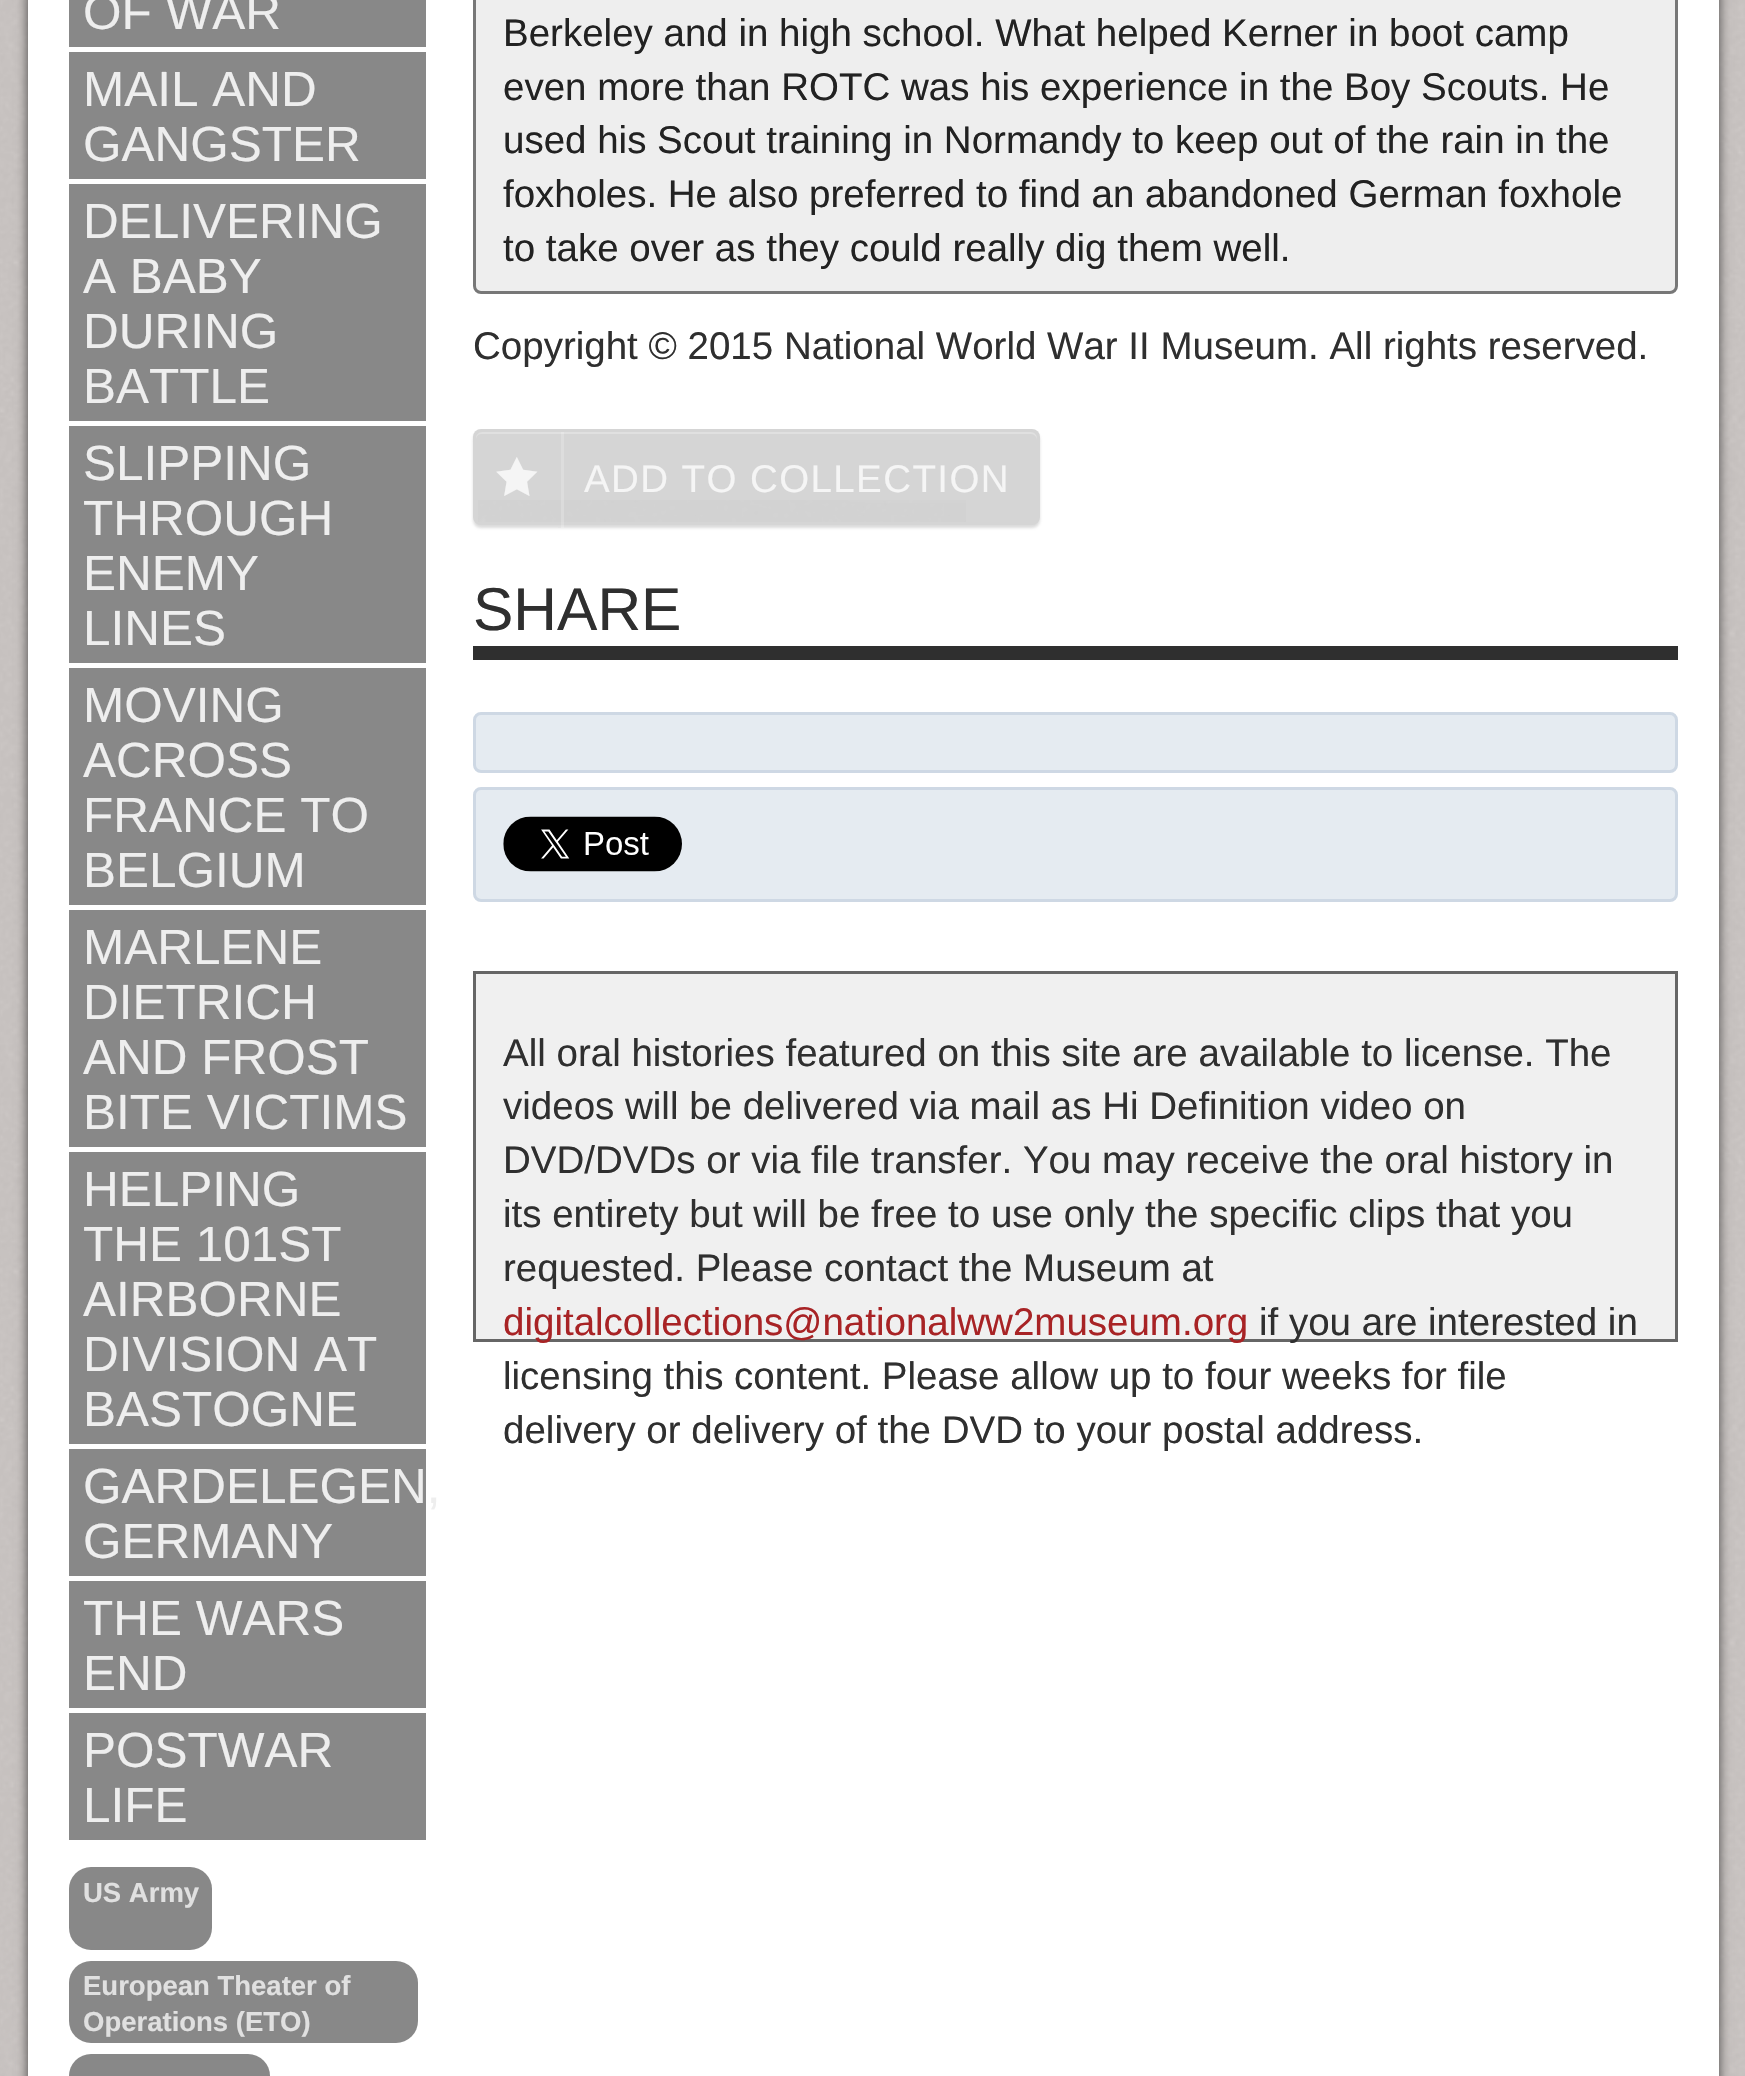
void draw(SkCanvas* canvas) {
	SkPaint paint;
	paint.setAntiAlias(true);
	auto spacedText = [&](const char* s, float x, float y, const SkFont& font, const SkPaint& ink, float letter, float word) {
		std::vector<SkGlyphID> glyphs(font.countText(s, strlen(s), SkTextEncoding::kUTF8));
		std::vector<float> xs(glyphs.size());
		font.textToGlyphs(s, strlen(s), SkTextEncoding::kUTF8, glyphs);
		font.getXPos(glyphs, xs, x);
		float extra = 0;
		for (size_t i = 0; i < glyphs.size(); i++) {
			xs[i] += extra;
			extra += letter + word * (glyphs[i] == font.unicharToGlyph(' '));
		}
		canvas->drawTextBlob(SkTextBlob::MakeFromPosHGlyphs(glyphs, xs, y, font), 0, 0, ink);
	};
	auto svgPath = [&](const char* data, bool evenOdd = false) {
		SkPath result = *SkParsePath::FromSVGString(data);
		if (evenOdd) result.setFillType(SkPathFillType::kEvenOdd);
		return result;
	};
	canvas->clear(0xffcbc6c3);
	canvas->drawImageRect(SkImages::DeferredFromEncodedData(SkData::MakeFromFileName("img1.png")), SkRect::MakeXYWH(0, 0, 1745, 2076), SkSamplingOptions());
	paint.setColor(0xa6000000);
	paint.setMaskFilter(SkMaskFilter::MakeBlur(kNormal_SkBlurStyle, 5.5));
	canvas->drawRect(SkRect::MakeXYWH(28, -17, 1691, 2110), paint);
	paint.setMaskFilter(nullptr);
	paint.setColor(0xffffffff);
	canvas->drawRect(SkRect::MakeXYWH(28, 0, 1691, 2076), paint);
	paint.setColor(0xff888888);
	canvas->drawRect(SkRect::MakeXYWH(69, 0, 357, 47), paint);
	SkFont f1(fontMgr->matchFamilyStyle("Liberation Sans", SkFontStyle::Normal()), 49.5);
	f1.setSubpixel(true);
	paint.setColor(0xffeeeeee);
	canvas->drawString("OF WAR", 83, 29, f1, paint);
	paint.setColor(0xff888888);
	canvas->drawRect(SkRect::MakeXYWH(69, 52, 357, 127), paint);
	paint.setColor(0xffeeeeee);
	canvas->drawString("MAIL AND", 83, 106, f1, paint);
	canvas->drawString("GANGSTER", 83, 161, f1, paint);
	paint.setColor(0xff888888);
	canvas->drawRect(SkRect::MakeXYWH(69, 184, 357, 237), paint);
	paint.setColor(0xffeeeeee);
	canvas->drawString("DELIVERING", 83, 238, f1, paint);
	canvas->drawString("A BABY", 83, 293, f1, paint);
	canvas->drawString("DURING", 83, 348, f1, paint);
	canvas->drawString("BATTLE", 83, 403, f1, paint);
	paint.setColor(0xff888888);
	canvas->drawRect(SkRect::MakeXYWH(69, 426, 357, 237), paint);
	paint.setColor(0xffeeeeee);
	canvas->drawString("SLIPPING", 83, 480, f1, paint);
	canvas->drawString("THROUGH", 83, 535, f1, paint);
	canvas->drawString("ENEMY", 83, 590, f1, paint);
	canvas->drawString("LINES", 83, 645, f1, paint);
	paint.setColor(0xff888888);
	canvas->drawRect(SkRect::MakeXYWH(69, 668, 357, 237), paint);
	paint.setColor(0xffeeeeee);
	canvas->drawString("MOVING", 83, 722, f1, paint);
	canvas->drawString("ACROSS", 83, 777, f1, paint);
	canvas->drawString("FRANCE TO", 83, 832, f1, paint);
	canvas->drawString("BELGIUM", 83, 887, f1, paint);
	paint.setColor(0xff888888);
	canvas->drawRect(SkRect::MakeXYWH(69, 910, 357, 237), paint);
	paint.setColor(0xffeeeeee);
	canvas->drawString("MARLENE", 83, 964, f1, paint);
	canvas->drawString("DIETRICH", 83, 1019, f1, paint);
	canvas->drawString("AND FROST", 83, 1074, f1, paint);
	canvas->drawString("BITE VICTIMS", 83, 1129, f1, paint);
	paint.setColor(0xff888888);
	canvas->drawRect(SkRect::MakeXYWH(69, 1152, 357, 292), paint);
	paint.setColor(0xffeeeeee);
	canvas->drawString("HELPING", 83, 1206, f1, paint);
	canvas->drawString("THE 101ST", 83, 1261, f1, paint);
	canvas->drawString("AIRBORNE", 83, 1316, f1, paint);
	canvas->drawString("DIVISION AT", 83, 1371, f1, paint);
	canvas->drawString("BASTOGNE", 83, 1426, f1, paint);
	paint.setColor(0xff888888);
	canvas->drawRect(SkRect::MakeXYWH(69, 1449, 357, 127), paint);
	paint.setColor(0xffeeeeee);
	canvas->drawString("GARDELEGEN,", 83, 1503, f1, paint);
	canvas->drawString("GERMANY", 83, 1558, f1, paint);
	paint.setColor(0xff888888);
	canvas->drawRect(SkRect::MakeXYWH(69, 1581, 357, 127), paint);
	paint.setColor(0xffeeeeee);
	canvas->drawString("THE WARS", 83, 1635, f1, paint);
	canvas->drawString("END", 83, 1690, f1, paint);
	paint.setColor(0xff888888);
	canvas->drawRect(SkRect::MakeXYWH(69, 1713, 357, 127), paint);
	paint.setColor(0xffeeeeee);
	canvas->drawString("POSTWAR", 83, 1767, f1, paint);
	canvas->drawString("LIFE", 83, 1822, f1, paint);
	paint.setColor(0xff888888);
	canvas->drawRoundRect(SkRect::MakeXYWH(69, 1867, 143, 83), 22, 22, paint);
	SkFont f2(fontMgr->matchFamilyStyle("Liberation Sans", SkFontStyle::Bold()), 27.5);
	f2.setSubpixel(true);
	paint.setColor(0xffe0e0e0);
	canvas->drawString("US Army", 83, 1902, f2, paint);
	paint.setColor(0xff888888);
	canvas->drawRoundRect(SkRect::MakeXYWH(69, 1961, 349, 82), 22, 22, paint);
	paint.setColor(0xffe0e0e0);
	canvas->drawString("European Theater of", 83, 1995, f2, paint);
	canvas->drawString("Operations (ETO)", 83, 2031, f2, paint);
	paint.setColor(0xff888888);
	canvas->drawRoundRect(SkRect::MakeXYWH(69, 2054, 201, 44), 22, 22, paint);
	paint.setColor(0xffeeeeee);
	canvas->drawRoundRect(SkRect::MakeXYWH(474.5, -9.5, 1202, 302), 6.5, 6.5, paint);
	paint.setStroke(true);
	paint.setStrokeWidth(3);
	paint.setColor(0xff777777);
	canvas->drawRoundRect(SkRect::MakeXYWH(474.5, -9.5, 1202, 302), 6.5, 6.5, paint);
	SkFont f3(fontMgr->matchFamilyStyle("Liberation Sans", SkFontStyle::Normal()), 38.5);
	f3.setSubpixel(true);
	paint.setStroke(false);
	paint.setColor(0xff222222);
	canvas->drawString("Berkeley and in high school. What helped Kerner in boot camp", 503, 46, f3, paint);
	canvas->drawString("even more than ROTC was his experience in the Boy Scouts. He", 503, 100, f3, paint);
	canvas->drawString("used his Scout training in Normandy to keep out of the rain in the", 503, 153, f3, paint);
	canvas->drawString("foxholes. He also preferred to find an abandoned German foxhole", 503, 207, f3, paint);
	canvas->drawString("to take over as they could really dig them well.", 503, 261, f3, paint);
	paint.setColor(0xff2f2f2f);
	canvas->drawString("Copyright © 2015 National World War II Museum. All rights reserved.", 473, 359, f3, paint);
	paint.setColor(0xb3cccccc);
	paint.setMaskFilter(SkMaskFilter::MakeBlur(kNormal_SkBlurStyle, 1.5));
	canvas->drawRoundRect(SkRect::MakeXYWH(473, 432, 567, 96), 8, 8, paint);
	paint.setMaskFilter(nullptr);
	paint.setColor(0xffd5d5d5);
	canvas->drawRoundRect(SkRect::MakeXYWH(473, 429, 567, 96), 8, 8, paint);
	canvas->drawImageRect(SkImages::DeferredFromEncodedData(SkData::MakeFromFileName("img2.png")), SkRect::MakeXYWH(478, 500, 488, 22), SkSamplingOptions());
	paint.setColor(0xffe0e0e0);
	canvas->drawPath(svgPath("M481 434H1031C1034 434 1037 437 1037 440V438C1037 435 1034 432 1031 432H482C479 432 476 435 476 438V440C476 437 478 434 481 434Z"), paint);
	paint.setColor(0x33ffffff);
	canvas->drawRect(SkRect::MakeXYWH(561, 432, 3, 96), paint);
	paint.setColor(0x1acccccc);
	canvas->drawRect(SkRect::MakeXYWH(558, 527, 3, 1), paint);
	SkFont f4(fontMgr->matchFamilyStyle("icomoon", SkFontStyle::Bold()), 38.5);
	f4.setSubpixel(true);
	paint.setColor(0xfff5f5f5);
	spacedText("★", 497, 494, f4, paint, 1.4, 0);
	spacedText("ADD TO COLLECTION", 584, 492, f3, paint, 1.4, 0);
	paint.setColor(0xff2f2f2f);
	canvas->drawRect(SkRect::MakeXYWH(473, 646, 1205, 14), paint);
	SkFont f5(fontMgr->matchFamilyStyle("Liberation Sans", SkFontStyle::Normal()), 60.5);
	f5.setSubpixel(true);
	canvas->drawString("SHARE", 473, 630, f5, paint);
	paint.setColor(0xffe5ebf1);
	canvas->drawRoundRect(SkRect::MakeXYWH(474.5, 713.5, 1202, 58), 6.5, 6.5, paint);
	paint.setStroke(true);
	paint.setColor(0xffced8e4);
	canvas->drawRoundRect(SkRect::MakeXYWH(474.5, 713.5, 1202, 58), 6.5, 6.5, paint);
	paint.setStroke(false);
	paint.setColor(0xffe5ebf1);
	canvas->drawRoundRect(SkRect::MakeXYWH(474.5, 788.5, 1202, 112), 6.5, 6.5, paint);
	paint.setStroke(true);
	paint.setColor(0xffced8e4);
	canvas->drawRoundRect(SkRect::MakeXYWH(474.5, 788.5, 1202, 112), 6.5, 6.5, paint);
	canvas->drawImageRect(SkImages::DeferredFromEncodedData(SkData::MakeFromFileName("img3.png")), SkRect::MakeXYWH(503, 816, 179, 56), SkSamplingOptions());
	paint.setStroke(false);
	paint.setColor(0xfff0f0f0);
	canvas->drawRect(SkRect::MakeXYWH(474.5, 972.5, 1202, 368), paint);
	paint.setStroke(true);
	paint.setColor(0xff666666);
	canvas->drawRect(SkRect::MakeXYWH(474.5, 972.5, 1202, 368), paint);
	paint.setStroke(false);
	paint.setColor(0xff2f2f2f);
	canvas->drawString("All oral histories featured on this site are available to license. The", 503, 1066, f3, paint);
	canvas->drawString("videos will be delivered via mail as Hi Definition video on", 503, 1119, f3, paint);
	canvas->drawString("DVD/DVDs or via file transfer. You may receive the oral history in", 503, 1173, f3, paint);
	canvas->drawString("its entirety but will be free to use only the specific clips that you", 503, 1227, f3, paint);
	canvas->drawString("requested. Please contact the Museum at", 503, 1281, f3, paint);
	paint.setColor(0xffa82325);
	canvas->drawString("digitalcollections@nationalww2museum.org", 503, 1335, f3, paint);
	paint.setColor(0xff2f2f2f);
	canvas->drawString("if you are interested in", 1259, 1335, f3, paint);
	canvas->drawString("licensing this content. Please allow up to four weeks for file", 503, 1389, f3, paint);
	canvas->drawString("delivery or delivery of the DVD to your postal address.", 503, 1443, f3, paint);
}
